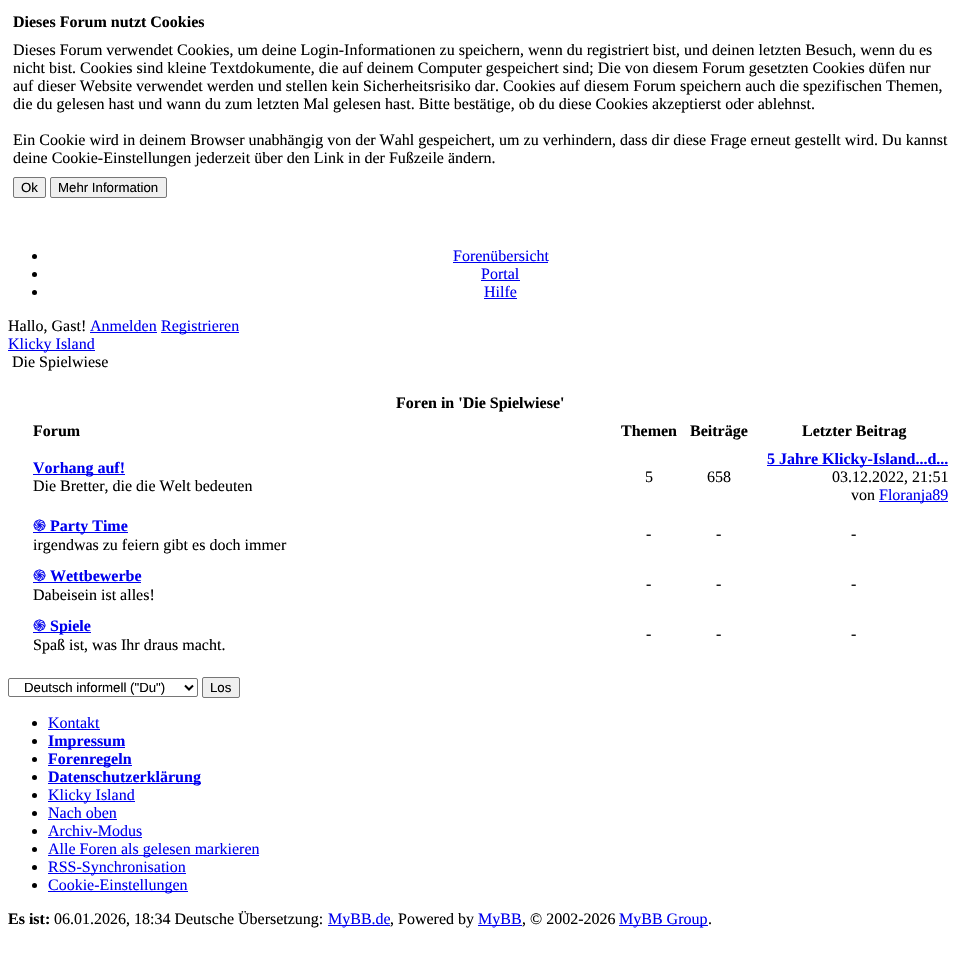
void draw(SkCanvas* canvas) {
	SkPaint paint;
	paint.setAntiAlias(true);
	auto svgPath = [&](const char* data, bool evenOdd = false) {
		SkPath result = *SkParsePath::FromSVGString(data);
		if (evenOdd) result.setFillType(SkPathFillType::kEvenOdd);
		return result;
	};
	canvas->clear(0xffffffff);
	SkFont f1(fontMgr->matchFamilyStyle("Liberation Serif", SkFontStyle::Bold()), 16);
	f1.setSubpixel(true);
	paint.setColor(0xff000000);
	canvas->drawString("Dieses Forum nutzt Cookies", 13, 27, f1, paint);
	SkFont f2(fontMgr->matchFamilyStyle("Liberation Serif", SkFontStyle::Normal()), 16);
	f2.setSubpixel(true);
	canvas->drawString("Dieses Forum verwendet Cookies, um deine Login-Informationen zu speichern, wenn du registriert bist, und deinen letzten Besuch, wenn du es", 13, 55, f2, paint);
	canvas->drawString("nicht bist. Cookies sind kleine Textdokumente, die auf deinem Computer gespeichert sind; Die von diesem Forum gesetzten Cookies düfen nur", 13, 73, f2, paint);
	canvas->drawString("auf dieser Website verwendet werden und stellen kein Sicherheitsrisiko dar. Cookies auf diesem Forum speichern auch die spezifischen Themen,", 13, 91, f2, paint);
	canvas->drawString("die du gelesen hast und wann du zum letzten Mal gelesen hast. Bitte bestätige, ob du diese Cookies akzeptierst oder ablehnst.", 13, 109, f2, paint);
	canvas->drawString("Ein Cookie wird in deinem Browser unabhängig von der Wahl gespeichert, um zu verhindern, dass dir diese Frage erneut gestellt wird. Du kannst", 13, 145, f2, paint);
	canvas->drawString("deine Cookie-Einstellungen jederzeit über den Link in der Fußzeile ändern.", 13, 163, f2, paint);
	paint.setColor(0xffefefef);
	canvas->drawRoundRect(SkRect::MakeXYWH(13.5, 177.5, 32, 20), 1.5, 1.5, paint);
	paint.setStroke(true);
	paint.setStrokeWidth(1);
	paint.setColor(0xff767676);
	canvas->drawRoundRect(SkRect::MakeXYWH(13.5, 177.5, 32, 20), 1.5, 1.5, paint);
	SkFont f3(fontMgr->matchFamilyStyle("Liberation Sans", SkFontStyle::Normal()), 13.25);
	f3.setSubpixel(true);
	paint.setStroke(false);
	paint.setColor(0xff000000);
	canvas->drawString("Ok", 21, 192, f3, paint);
	paint.setColor(0xffefefef);
	canvas->drawRoundRect(SkRect::MakeXYWH(50.5, 177.5, 116, 20), 1.5, 1.5, paint);
	paint.setStroke(true);
	paint.setColor(0xff767676);
	canvas->drawRoundRect(SkRect::MakeXYWH(50.5, 177.5, 116, 20), 1.5, 1.5, paint);
	paint.setStroke(false);
	paint.setColor(0xff000000);
	canvas->drawString("Mehr Information", 58, 192, f3, paint);
	canvas->drawCircle(34.5, 256.5, 2.5, paint);
	paint.setColor(0xff0000ee);
	canvas->drawString("Forenübersicht", 453, 261, f2, paint);
	canvas->drawRect(SkRect::MakeXYWH(453, 262, 95, 1), paint);
	paint.setColor(0xff000000);
	canvas->drawCircle(34.5, 274.5, 2.5, paint);
	paint.setColor(0xff0000ee);
	canvas->drawString("Portal", 481, 279, f2, paint);
	canvas->drawRect(SkRect::MakeXYWH(481, 280, 39, 1), paint);
	paint.setColor(0xff000000);
	canvas->drawCircle(34.5, 292.5, 2.5, paint);
	paint.setColor(0xff0000ee);
	canvas->drawString("Hilfe", 484, 297, f2, paint);
	canvas->drawRect(SkRect::MakeXYWH(484, 298, 33, 1), paint);
	paint.setColor(0xff000000);
	canvas->drawString("Hallo, Gast!", 8, 331, f2, paint);
	paint.setColor(0xff0000ee);
	canvas->drawString("Anmelden", 90, 331, f2, paint);
	canvas->drawRect(SkRect::MakeXYWH(90, 332, 67, 1), paint);
	canvas->drawRect(SkRect::MakeXYWH(161, 332, 78, 1), paint);
	canvas->drawString("Registrieren", 161, 331, f2, paint);
	canvas->drawRect(SkRect::MakeXYWH(8, 350, 87, 1), paint);
	canvas->drawString("Klicky Island", 8, 349, f2, paint);
	paint.setColor(0xff000000);
	canvas->drawString("Die Spielwiese", 12, 367, f2, paint);
	canvas->drawString("Foren in 'Die Spielwiese'", 396, 408, f1, paint);
	canvas->drawString("Forum", 33, 436, f1, paint);
	canvas->drawString("Themen", 621, 436, f1, paint);
	canvas->drawString("Beiträge", 690, 436, f1, paint);
	canvas->drawString("Letzter Beitrag", 802, 436, f1, paint);
	paint.setColor(0xff0000ee);
	canvas->drawRect(SkRect::MakeXYWH(33, 474, 92, 1), paint);
	canvas->drawString("Vorhang auf!", 33, 473, f1, paint);
	paint.setColor(0xff000000);
	canvas->drawString("Die Bretter, die die Welt bedeuten", 33, 491, f2, paint);
	canvas->drawString("5", 645, 482, f2, paint);
	canvas->drawString("658", 707, 482, f2, paint);
	paint.setColor(0xff0000ee);
	canvas->drawRect(SkRect::MakeXYWH(767, 465, 181, 1), paint);
	canvas->drawString("5 Jahre Klicky-Island...d...", 767, 464, f1, paint);
	paint.setColor(0xff000000);
	canvas->drawString("03.12.2022, 21:51", 832, 482, f2, paint);
	canvas->drawString("von", 851, 500, f2, paint);
	paint.setColor(0xff0000ee);
	canvas->drawRect(SkRect::MakeXYWH(879, 501, 69, 1), paint);
	canvas->drawString("Floranja89", 879, 500, f2, paint);
	SkFont f4(fontMgr->matchFamilyStyle("Noto Sans Armenian", SkFontStyle::Bold()), 16);
	f4.setSubpixel(true);
	canvas->drawString("֍", 33, 531, f4, paint);
	canvas->drawRect(SkRect::MakeXYWH(33, 532, 95, 1), paint);
	canvas->drawString("Party Time", 50, 531, f1, paint);
	paint.setColor(0xff000000);
	canvas->drawString("irgendwas zu feiern gibt es doch immer", 33, 550, f2, paint);
	canvas->drawString("-", 646, 539, f2, paint);
	canvas->drawString("-", 716, 539, f2, paint);
	canvas->drawString("-", 851, 539, f2, paint);
	paint.setColor(0xff0000ee);
	canvas->drawString("֍", 33, 581, f4, paint);
	canvas->drawRect(SkRect::MakeXYWH(33, 582, 108, 1), paint);
	canvas->drawString("Wettbewerbe", 50, 581, f1, paint);
	paint.setColor(0xff000000);
	canvas->drawString("Dabeisein ist alles!", 33, 600, f2, paint);
	canvas->drawString("-", 646, 589, f2, paint);
	canvas->drawString("-", 716, 589, f2, paint);
	canvas->drawString("-", 851, 589, f2, paint);
	paint.setColor(0xff0000ee);
	canvas->drawString("֍", 33, 631, f4, paint);
	canvas->drawRect(SkRect::MakeXYWH(33, 632, 58, 1), paint);
	canvas->drawString("Spiele", 50, 631, f1, paint);
	paint.setColor(0xff000000);
	canvas->drawString("Spaß ist, was Ihr draus macht.", 33, 650, f2, paint);
	canvas->drawString("-", 646, 639, f2, paint);
	canvas->drawString("-", 716, 639, f2, paint);
	canvas->drawString("-", 851, 639, f2, paint);
	paint.setStroke(true);
	paint.setColor(0xff767676);
	canvas->drawRoundRect(SkRect::MakeXYWH(8.5, 678.5, 189, 18), 1.5, 1.5, paint);
	paint.setStrokeWidth(2);
	paint.setColor(0xff000000);
	canvas->drawPath(svgPath("M185 685.5L189 689.5L193 685.5"), paint);
	paint.setStroke(false);
	canvas->drawString("Deutsch informell (\"Du\")", 24, 692, f3, paint);
	paint.setColor(0xffefefef);
	canvas->drawRoundRect(SkRect::MakeXYWH(202.5, 677.5, 37, 20), 1.5, 1.5, paint);
	paint.setStroke(true);
	paint.setStrokeWidth(1);
	paint.setColor(0xff767676);
	canvas->drawRoundRect(SkRect::MakeXYWH(202.5, 677.5, 37, 20), 1.5, 1.5, paint);
	paint.setStroke(false);
	paint.setColor(0xff000000);
	canvas->drawString("Los", 210, 692, f3, paint);
	canvas->drawCircle(34.5, 723.5, 2.5, paint);
	paint.setColor(0xff0000ee);
	canvas->drawString("Kontakt", 48, 728, f2, paint);
	canvas->drawRect(SkRect::MakeXYWH(48, 729, 52, 1), paint);
	paint.setColor(0xff000000);
	canvas->drawCircle(34.5, 741.5, 2.5, paint);
	paint.setColor(0xff0000ee);
	canvas->drawRect(SkRect::MakeXYWH(48, 747, 77, 1), paint);
	canvas->drawString("Impressum", 48, 746, f1, paint);
	paint.setColor(0xff000000);
	canvas->drawCircle(34.5, 759.5, 2.5, paint);
	paint.setColor(0xff0000ee);
	canvas->drawRect(SkRect::MakeXYWH(48, 765, 84, 1), paint);
	canvas->drawString("Forenregeln", 48, 764, f1, paint);
	paint.setColor(0xff000000);
	canvas->drawCircle(34.5, 777.5, 2.5, paint);
	paint.setColor(0xff0000ee);
	canvas->drawRect(SkRect::MakeXYWH(48, 783, 153, 1), paint);
	canvas->drawString("Datenschutzerklärung", 48, 782, f1, paint);
	paint.setColor(0xff000000);
	canvas->drawCircle(34.5, 795.5, 2.5, paint);
	paint.setColor(0xff0000ee);
	canvas->drawRect(SkRect::MakeXYWH(48, 801, 87, 1), paint);
	canvas->drawString("Klicky Island", 48, 800, f2, paint);
	paint.setColor(0xff000000);
	canvas->drawCircle(34.5, 813.5, 2.5, paint);
	paint.setColor(0xff0000ee);
	canvas->drawString("Nach oben", 48, 818, f2, paint);
	canvas->drawRect(SkRect::MakeXYWH(48, 819, 69, 1), paint);
	paint.setColor(0xff000000);
	canvas->drawCircle(34.5, 831.5, 2.5, paint);
	paint.setColor(0xff0000ee);
	canvas->drawString("Archiv-Modus", 48, 836, f2, paint);
	canvas->drawRect(SkRect::MakeXYWH(48, 837, 94, 1), paint);
	paint.setColor(0xff000000);
	canvas->drawCircle(34.5, 849.5, 2.5, paint);
	paint.setColor(0xff0000ee);
	canvas->drawRect(SkRect::MakeXYWH(48, 855, 211, 1), paint);
	canvas->drawString("Alle Foren als gelesen markieren", 48, 854, f2, paint);
	paint.setColor(0xff000000);
	canvas->drawCircle(34.5, 867.5, 2.5, paint);
	paint.setColor(0xff0000ee);
	canvas->drawRect(SkRect::MakeXYWH(48, 873, 138, 1), paint);
	canvas->drawString("RSS-Synchronisation", 48, 872, f2, paint);
	paint.setColor(0xff000000);
	canvas->drawCircle(34.5, 885.5, 2.5, paint);
	paint.setColor(0xff0000ee);
	canvas->drawRect(SkRect::MakeXYWH(48, 891, 140, 1), paint);
	canvas->drawString("Cookie-Einstellungen", 48, 890, f2, paint);
	paint.setColor(0xff000000);
	canvas->drawString("Es ist:", 8, 924, f1, paint);
	canvas->drawString("06.01.2026, 18:34 Deutsche Übersetzung:", 54, 924, f2, paint);
	paint.setColor(0xff0000ee);
	canvas->drawRect(SkRect::MakeXYWH(328, 925, 62, 1), paint);
	canvas->drawString("MyBB.de", 328, 924, f2, paint);
	paint.setColor(0xff000000);
	canvas->drawString(", Powered by", 390, 924, f2, paint);
	paint.setColor(0xff0000ee);
	canvas->drawRect(SkRect::MakeXYWH(478, 925, 44, 1), paint);
	canvas->drawString("MyBB", 478, 924, f2, paint);
	paint.setColor(0xff000000);
	canvas->drawString(", © 2002-2026", 522, 924, f2, paint);
	paint.setColor(0xff0000ee);
	canvas->drawRect(SkRect::MakeXYWH(619, 925, 89, 1), paint);
	canvas->drawString("MyBB Group", 619, 924, f2, paint);
	paint.setColor(0xff000000);
	canvas->drawString(".", 708, 924, f2, paint);
}
